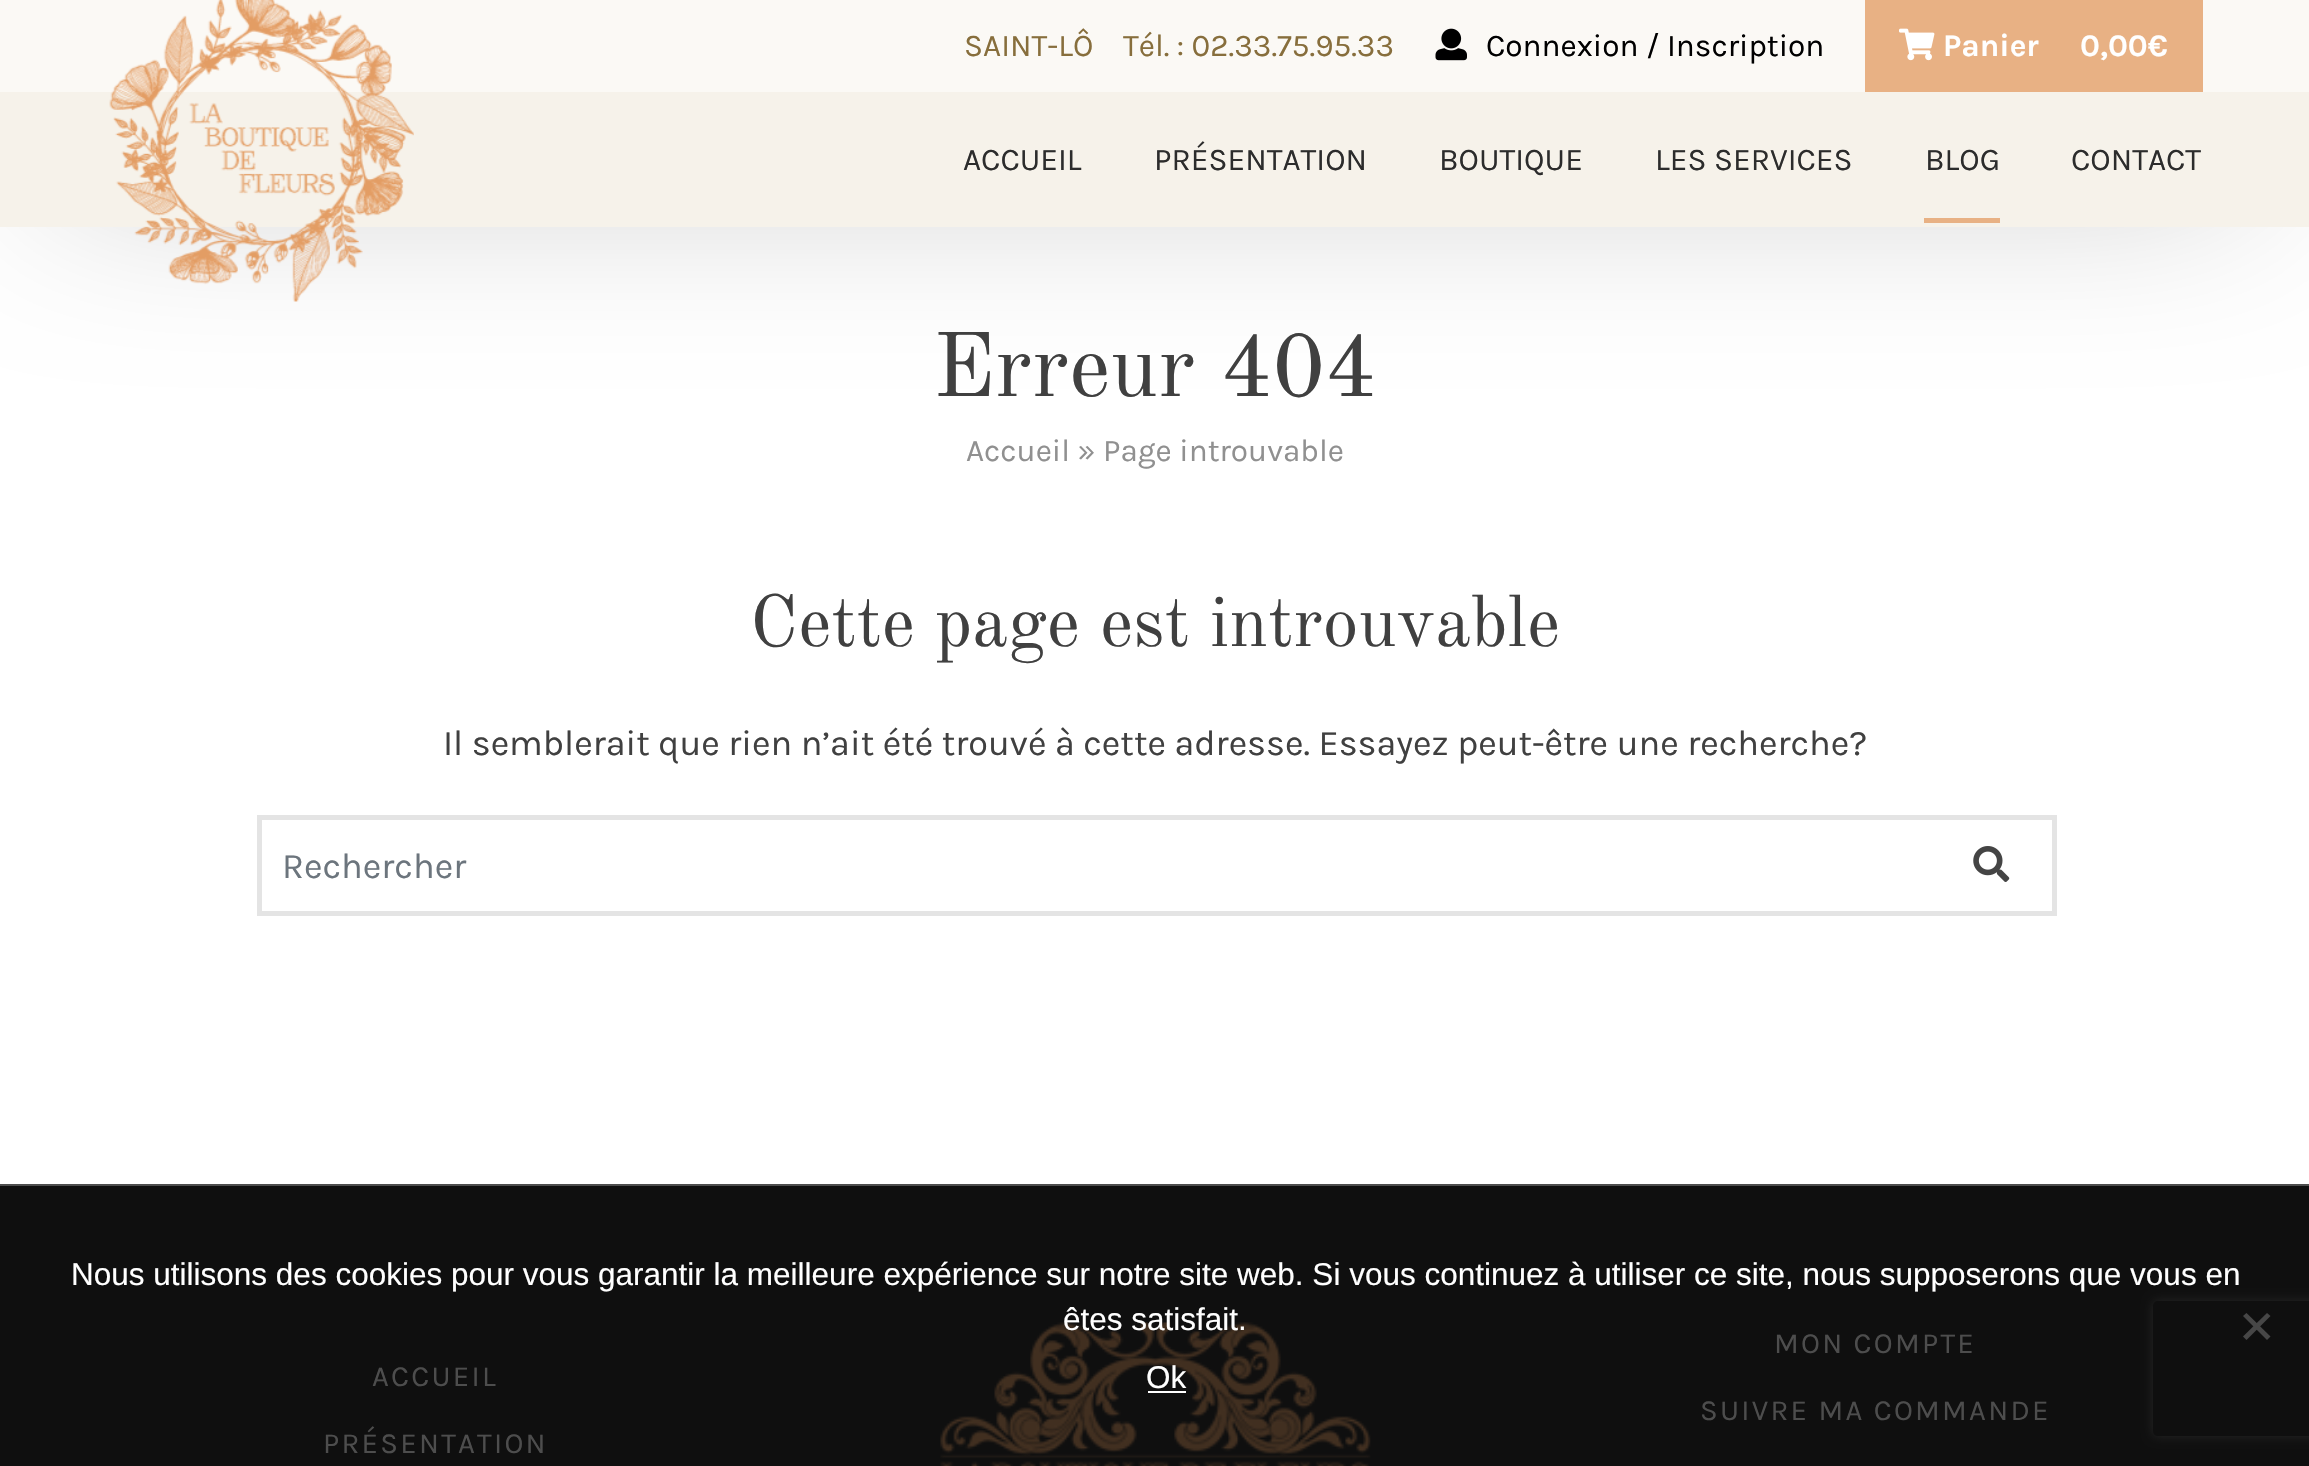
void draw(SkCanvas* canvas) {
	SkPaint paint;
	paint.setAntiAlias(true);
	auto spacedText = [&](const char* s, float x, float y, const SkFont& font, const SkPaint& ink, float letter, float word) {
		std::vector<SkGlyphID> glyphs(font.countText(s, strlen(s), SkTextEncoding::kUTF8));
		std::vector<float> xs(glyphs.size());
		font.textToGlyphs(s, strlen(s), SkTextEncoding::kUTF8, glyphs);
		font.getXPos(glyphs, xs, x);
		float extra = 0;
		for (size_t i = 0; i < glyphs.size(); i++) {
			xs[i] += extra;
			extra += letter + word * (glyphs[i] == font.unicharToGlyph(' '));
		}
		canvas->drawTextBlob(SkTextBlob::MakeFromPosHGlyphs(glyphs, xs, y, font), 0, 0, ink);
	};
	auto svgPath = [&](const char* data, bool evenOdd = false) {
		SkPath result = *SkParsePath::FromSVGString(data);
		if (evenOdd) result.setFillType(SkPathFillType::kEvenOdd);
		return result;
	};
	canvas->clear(0xffffffff);
	paint.setColor(0xff4d4d4d);
	canvas->drawRect(SkRect::MakeXYWH(0, 1184, 2309, 2), paint);
	paint.setColor(0x4a000000);
	paint.setMaskFilter(SkMaskFilter::MakeBlur(kNormal_SkBlurStyle, 91));
	canvas->drawRect(SkRect::MakeXYWH(56, 65, 2190, 106), paint);
	paint.setMaskFilter(nullptr);
	paint.setColor(0xfff6f2ea);
	canvas->drawRect(SkRect::MakeXYWH(0, 92, 2309, 135), paint);
	paint.setColor(0xfffbf9f5);
	canvas->drawRect(SkRect::MakeXYWH(0, 0, 2309, 92), paint);
	SkFont f1(fontMgr->matchFamilyStyle("Karla", SkFontStyle::Normal()), 31.5);
	f1.setSubpixel(true);
	paint.setColor(0xff876e3c);
	canvas->drawString("SAINT-LÔ", 964, 56, f1, paint);
	canvas->drawString("Tél. : 02.33.75.95.33", 1123, 56, f1, paint);
	canvas->drawImageRect(SkImages::DeferredFromEncodedData(SkData::MakeFromFileName("img1.png")), SkRect::MakeXYWH(1435, 28, 32, 33), SkSamplingOptions());
	paint.setColor(0xff000000);
	canvas->drawString("Connexion / Inscription", 1486, 56, f1, paint);
	paint.setColor(0xffe8b184);
	canvas->drawRect(SkRect::MakeXYWH(1865, 0, 338, 92), paint);
	canvas->drawImageRect(SkImages::DeferredFromEncodedData(SkData::MakeFromFileName("img2.png")), SkRect::MakeXYWH(1899, 28, 36, 33), SkSamplingOptions());
	SkFont f2(fontMgr->matchFamilyStyle("Karla", SkFontStyle::Bold()), 31.5);
	f2.setSubpixel(true);
	paint.setColor(0xffffffff);
	canvas->drawString("Panier", 1943, 56, f2, paint);
	canvas->drawString("0,00€", 2080, 56, f2, paint);
	canvas->drawImageRect(SkImages::DeferredFromEncodedData(SkData::MakeFromFileName("img3.png")), SkRect::MakeXYWH(109, 0, 305, 302), SkSamplingOptions());
	paint.setColor(0xff2c2c2c);
	canvas->drawString("ACCUEIL", 963, 170, f1, paint);
	canvas->drawString("PRÉSENTATION", 1154, 170, f1, paint);
	canvas->drawString("BOUTIQUE", 1439, 170, f1, paint);
	canvas->drawString("LES SERVICES", 1655, 170, f1, paint);
	canvas->drawString("BLOG", 1925, 170, f1, paint);
	paint.setColor(0xffe8b184);
	canvas->drawRect(SkRect::MakeXYWH(1924, 218, 76, 5), paint);
	paint.setColor(0xff2c2c2c);
	canvas->drawString("CONTACT", 2071, 170, f1, paint);
	SkFont f3(fontMgr->matchFamilyStyle("Old Standard TT", SkFontStyle::Normal()), 90);
	f3.setSubpixel(true);
	paint.setColor(0xff404040);
	canvas->drawString("Erreur 404", 933, 396, f3, paint);
	paint.setColor(0xff909090);
	canvas->drawString("Accueil » Page introuvable", 966, 461, f1, paint);
	SkFont f4(fontMgr->matchFamilyStyle("Old Standard TT", SkFontStyle::Normal()), 72);
	f4.setSubpixel(true);
	paint.setColor(0xff404040);
	canvas->drawString("Cette page est introuvable", 750, 646, f4, paint);
	SkFont f5(fontMgr->matchFamilyStyle("Karla", SkFontStyle::Normal()), 36);
	f5.setSubpixel(true);
	canvas->drawString("Il semblerait que rien n’ait été trouvé à cette adresse. Essayez peut-être une recherche?", 443, 755, f5, paint);
	paint.setStroke(true);
	paint.setStrokeWidth(5);
	paint.setColor(0xffe4e4e4);
	canvas->drawRect(SkRect::MakeXYWH(259.5, 817.5, 1795, 96), paint);
	paint.setStroke(false);
	paint.setColor(0xff6c757d);
	canvas->drawString("Rechercher", 282, 878, f5, paint);
	canvas->drawImageRect(SkImages::DeferredFromEncodedData(SkData::MakeFromFileName("img4.png")), SkRect::MakeXYWH(1973, 846, 37, 36), SkSamplingOptions());
	paint.setColor(0xff0f0f0f);
	canvas->drawRect(SkRect::MakeXYWH(0, 1186, 2309, 280), paint);
	SkFont f6(fontMgr->matchFamilyStyle("Karla", SkFontStyle::Normal()), 29.25);
	f6.setSubpixel(true);
	paint.setColor(0xff4d4d4d);
	spacedText("ACCUEIL", 372, 1386, f6, paint, 2.25, 0);
	spacedText("PRÉSENTATION", 323, 1453, f6, paint, 2.25, 0);
	canvas->drawImageRect(SkImages::DeferredFromEncodedData(SkData::MakeFromFileName("img5.png")), SkRect::MakeXYWH(940, 1322, 431, 144), SkSamplingOptions());
	spacedText("MON COMPTE", 1774, 1353, f6, paint, 2.25, 0);
	spacedText("SUIVRE MA COMMANDE", 1700, 1420, f6, paint, 2.25, 0);
	canvas->save();
	canvas->clipPath(svgPath("M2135 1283H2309V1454H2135ZM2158 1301H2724C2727 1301 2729 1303 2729 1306V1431C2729 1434 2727 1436 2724 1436H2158C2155 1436 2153 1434 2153 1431V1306C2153 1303 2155 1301 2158 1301Z", true), true);
	paint.setColor(0xff262626);
	paint.setMaskFilter(SkMaskFilter::MakeBlur(kNormal_SkBlurStyle, 5.5));
	canvas->drawRoundRect(SkRect::MakeXYWH(2153, 1301, 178, 135), 5, 5, paint);
	paint.setMaskFilter(nullptr);
	canvas->restore();
	SkFont f7(fontMgr->matchFamilyStyle("Liberation Sans", SkFontStyle::Normal()), 31.5);
	f7.setSubpixel(true);
	paint.setColor(0xffffffff);
	canvas->drawString("Nous utilisons des cookies pour vous garantir la meilleure expérience sur notre site web. Si vous continuez à utiliser ce site, nous supposerons que vous en", 71, 1285, f7, paint);
	canvas->drawString("êtes satisfait.", 1063, 1330, f7, paint);
	paint.setColor(0xff474747);
	canvas->drawPath(svgPath("M2267 1313L2270.5 1316L2246.5 1340L2243 1336.5Z"), paint);
	canvas->drawPath(svgPath("M2243 1316L2246.5 1313L2270.5 1336.5L2267 1340Z"), paint);
	paint.setColor(0xffffffff);
	canvas->drawString("Ok", 1146, 1388, f7, paint);
	canvas->drawRect(SkRect::MakeXYWH(1148, 1391, 38, 2), paint);
}
